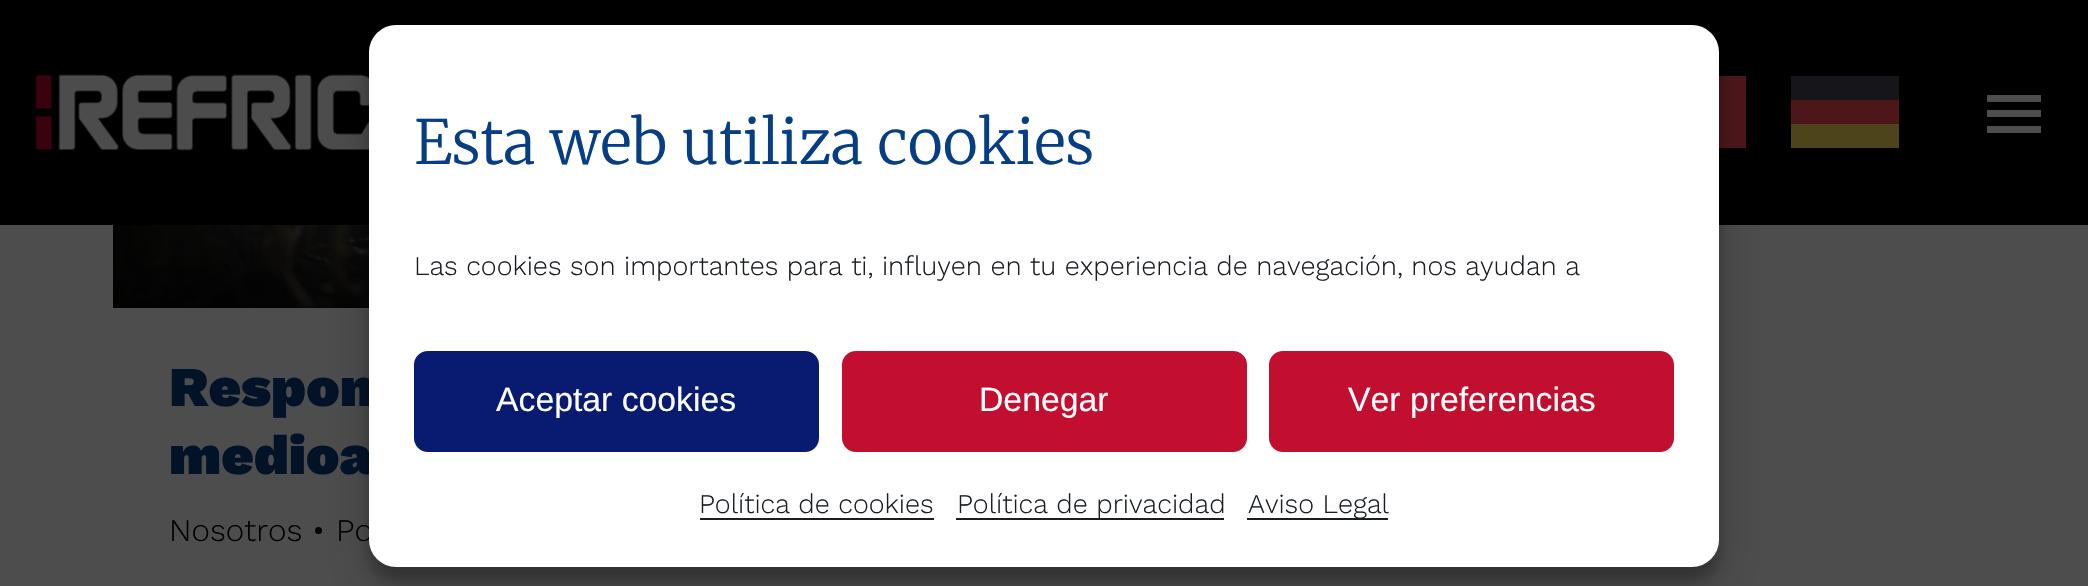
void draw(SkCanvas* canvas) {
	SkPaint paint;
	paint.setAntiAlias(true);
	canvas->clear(0xff4d4d4d);
	paint.setColor(0xff000000);
	canvas->drawRect(SkRect::MakeXYWH(0, 0, 2088, 225), paint);
	canvas->drawImageRect(SkImages::DeferredFromEncodedData(SkData::MakeFromFileName("img1.png")), SkRect::MakeXYWH(35, 74, 334, 77), SkSamplingOptions());
	paint.setColor(0xff4d171a);
	canvas->drawRect(SkRect::MakeXYWH(1719, 76, 27, 72), paint);
	paint.setColor(0xff15151a);
	canvas->drawRect(SkRect::MakeXYWH(1791, 76, 108, 24), paint);
	paint.setColor(0xff4d171a);
	canvas->drawRect(SkRect::MakeXYWH(1791, 100, 108, 24), paint);
	paint.setColor(0xff4d441b);
	canvas->drawRect(SkRect::MakeXYWH(1791, 124, 108, 24), paint);
	paint.setColor(0xff4d4d4d);
	canvas->drawRect(SkRect::MakeXYWH(1987, 95, 54, 7), paint);
	canvas->drawRect(SkRect::MakeXYWH(1987, 110, 54, 7), paint);
	canvas->drawRect(SkRect::MakeXYWH(1987, 126, 54, 7), paint);
	canvas->drawImageRect(SkImages::DeferredFromEncodedData(SkData::MakeFromFileName("img2.png")), SkRect::MakeXYWH(113, 225, 256, 83), SkSamplingOptions());
	SkFont f1(fontMgr->matchFamilyStyle("Work Sans", SkFontStyle(900, SkFontStyle::kNormal_Width, SkFontStyle::kUpright_Slant)), 56);
	f1.setSubpixel(true);
	paint.setColor(0xff021328);
	canvas->drawString("Respon", 169, 406, f1, paint);
	canvas->drawString("medioa", 169, 474, f1, paint);
	SkFont f2(fontMgr->matchFamilyStyle("Work Sans", SkFontStyle(300, SkFontStyle::kNormal_Width, SkFontStyle::kUpright_Slant)), 31.5);
	f2.setSubpixel(true);
	paint.setColor(0xff000000);
	canvas->drawString("Nosotros", 169, 541, f2, paint);
	canvas->drawCircle(318.5, 530.5, 3.5, paint);
	canvas->drawString("Po", 336, 541, f2, paint);
	paint.setColor(0x3b000000);
	paint.setMaskFilter(SkMaskFilter::MakeBlur(kNormal_SkBlurStyle, 7));
	canvas->drawRoundRect(SkRect::MakeXYWH(369, 38, 1350, 543), 27, 27, paint);
	paint.setMaskFilter(nullptr);
	paint.setColor(0x30000000);
	paint.setMaskFilter(SkMaskFilter::MakeBlur(kNormal_SkBlurStyle, 22.5));
	canvas->drawRoundRect(SkRect::MakeXYWH(369, 47, 1350, 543), 27, 27, paint);
	paint.setMaskFilter(nullptr);
	paint.setColor(0xffffffff);
	canvas->drawRoundRect(SkRect::MakeXYWH(369, 25, 1350, 542), 27, 27, paint);
	SkFont f3(fontMgr->matchFamilyStyle("Merriweather", SkFontStyle(300, SkFontStyle::kNormal_Width, SkFontStyle::kUpright_Slant)), 60.75);
	f3.setSubpixel(true);
	paint.setColor(0xff063e85);
	canvas->drawString("Esta web utiliza cookies", 414, 164, f3, paint);
	SkFont f4(fontMgr->matchFamilyStyle("Work Sans", SkFontStyle(300, SkFontStyle::kNormal_Width, SkFontStyle::kUpright_Slant)), 27);
	f4.setSubpixel(true);
	paint.setColor(0xff191e23);
	canvas->drawString("Las cookies son importantes para ti, influyen en tu experiencia de navegación, nos ayudan a", 414, 275, f4, paint);
	paint.setColor(0xff091a71);
	canvas->drawRoundRect(SkRect::MakeXYWH(415, 352, 403, 99), 13, 13, paint);
	paint.setStroke(true);
	paint.setStrokeWidth(2);
	canvas->drawRoundRect(SkRect::MakeXYWH(415, 352, 403, 99), 13, 13, paint);
	SkFont f5(fontMgr->matchFamilyStyle("Liberation Sans", SkFontStyle::Normal()), 33.75);
	f5.setSubpixel(true);
	paint.setStroke(false);
	paint.setColor(0xffffffff);
	canvas->drawString("Aceptar cookies", 496, 411, f5, paint);
	paint.setColor(0xffc20f2f);
	canvas->drawRoundRect(SkRect::MakeXYWH(843, 352, 403, 99), 13, 13, paint);
	paint.setStroke(true);
	canvas->drawRoundRect(SkRect::MakeXYWH(843, 352, 403, 99), 13, 13, paint);
	paint.setStroke(false);
	paint.setColor(0xffffffff);
	canvas->drawString("Denegar", 979, 411, f5, paint);
	paint.setColor(0xffc20f2f);
	canvas->drawRoundRect(SkRect::MakeXYWH(1270, 352, 403, 99), 13, 13, paint);
	paint.setStroke(true);
	canvas->drawRoundRect(SkRect::MakeXYWH(1270, 352, 403, 99), 13, 13, paint);
	paint.setStroke(false);
	paint.setColor(0xffffffff);
	canvas->drawString("Ver preferencias", 1348, 411, f5, paint);
	paint.setColor(0xff191e23);
	canvas->drawString("Política de cookies", 699, 513, f4, paint);
	canvas->drawRect(SkRect::MakeXYWH(700, 518, 234, 2), paint);
	canvas->drawRect(SkRect::MakeXYWH(956, 518, 268, 2), paint);
	canvas->drawString("Política de privacidad", 957, 513, f4, paint);
	canvas->drawRect(SkRect::MakeXYWH(1247, 518, 141, 2), paint);
	canvas->drawString("Aviso Legal", 1248, 513, f4, paint);
}
